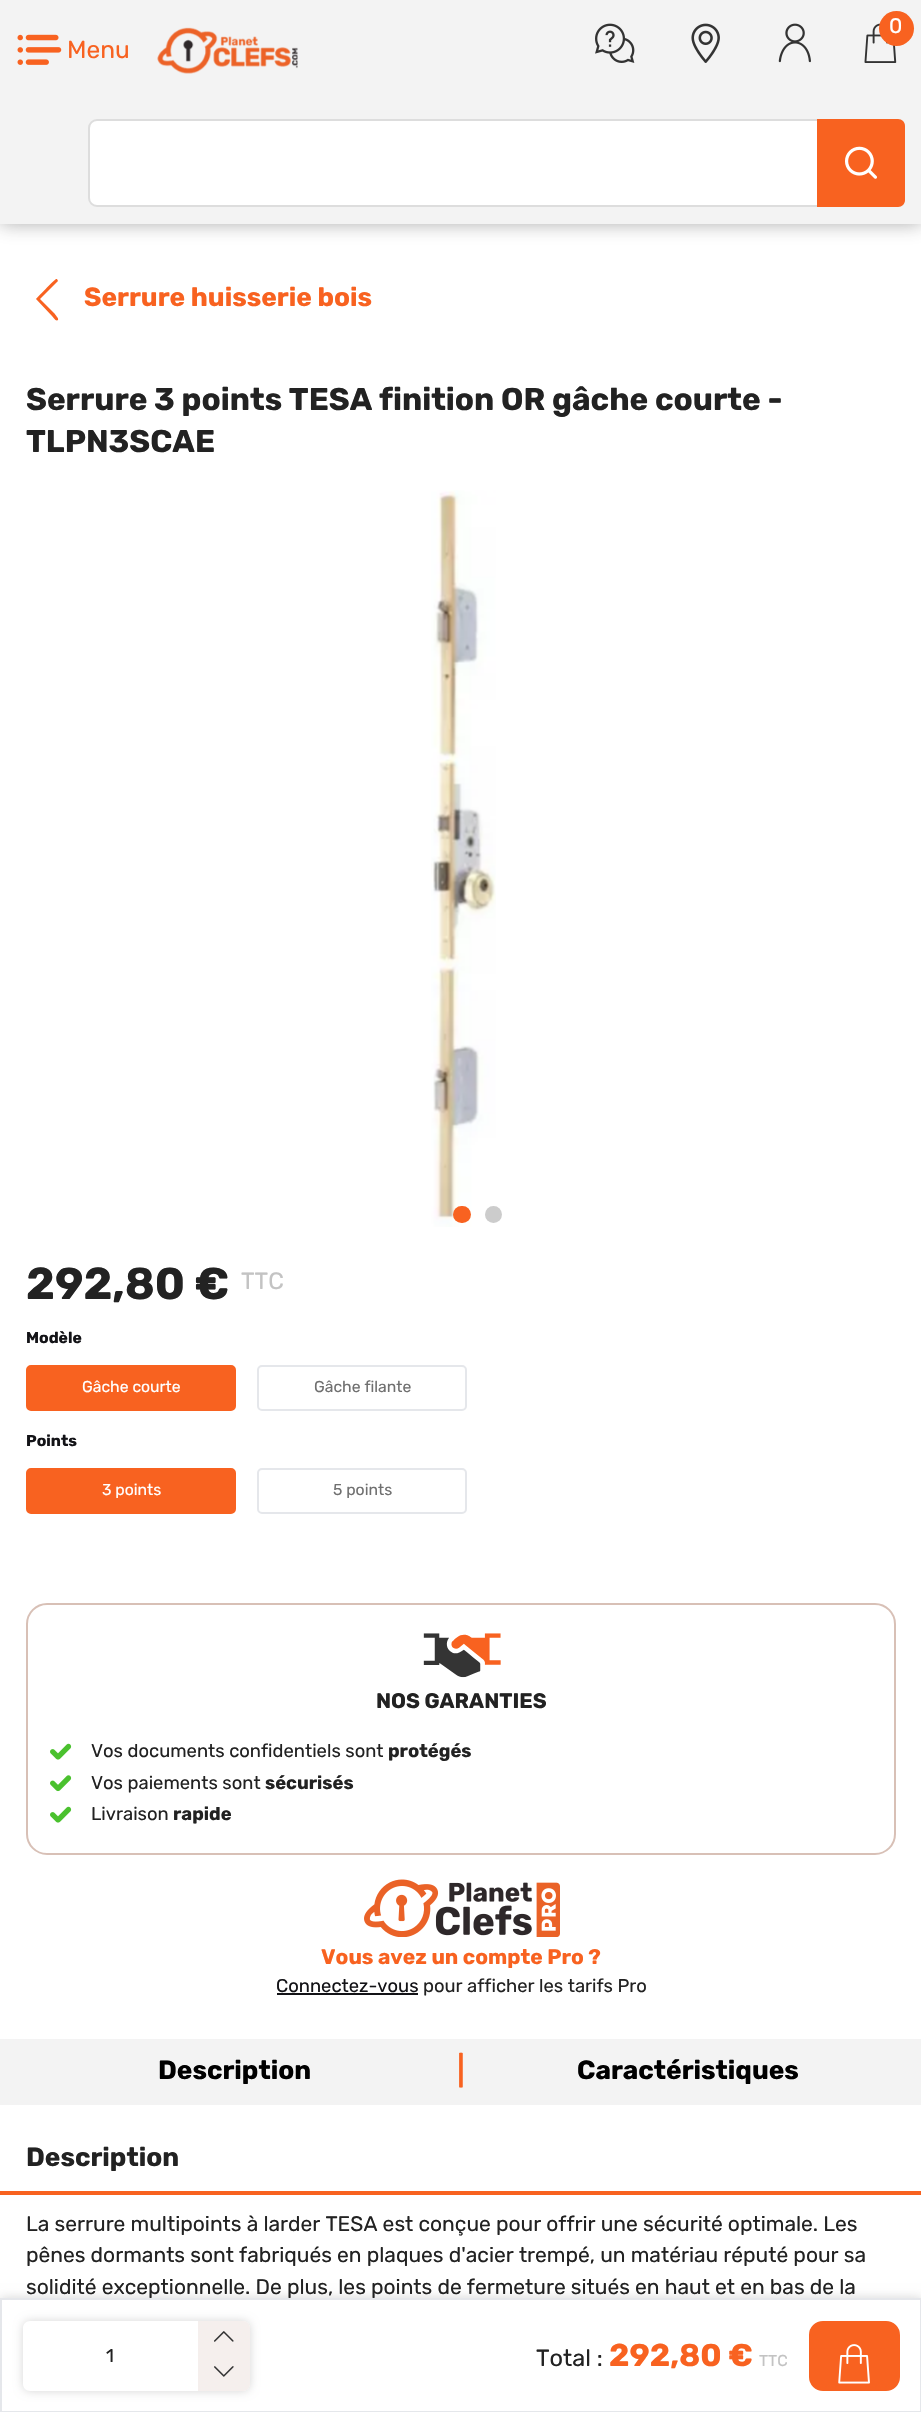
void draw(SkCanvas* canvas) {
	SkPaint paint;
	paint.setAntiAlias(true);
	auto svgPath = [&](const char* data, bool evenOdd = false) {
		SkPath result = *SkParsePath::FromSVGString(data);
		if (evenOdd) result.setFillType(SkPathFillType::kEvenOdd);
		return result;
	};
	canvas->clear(0xffffffff);
	paint.setColor(0x66333333);
	paint.setMaskFilter(SkMaskFilter::MakeBlur(kNormal_SkBlurStyle, 9));
	canvas->drawRect(SkRect::MakeXYWH(0, 0, 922, 224), paint);
	paint.setMaskFilter(nullptr);
	paint.setColor(0xfff3f3f3);
	canvas->drawRect(SkRect::MakeXYWH(0, 0, 921, 224), paint);
	canvas->drawImageRect(SkImages::DeferredFromEncodedData(SkData::MakeFromFileName("img1.png")), SkRect::MakeXYWH(595, 23, 40, 40), SkSamplingOptions());
	canvas->drawImageRect(SkImages::DeferredFromEncodedData(SkData::MakeFromFileName("img2.png")), SkRect::MakeXYWH(691, 23, 29, 40), SkSamplingOptions());
	canvas->drawImageRect(SkImages::DeferredFromEncodedData(SkData::MakeFromFileName("img3.png")), SkRect::MakeXYWH(778, 23, 33, 40), SkSamplingOptions());
	canvas->drawImageRect(SkImages::DeferredFromEncodedData(SkData::MakeFromFileName("img4.png")), SkRect::MakeXYWH(864, 23, 33, 40), SkSamplingOptions());
	paint.setColor(0xfff86220);
	canvas->drawCircle(896.5, 28.5, 17.5, paint);
	SkFont f1(fontMgr->matchFamilyStyle("Rubik", SkFontStyle::Normal()), 21);
	f1.setSubpixel(true);
	paint.setColor(0xffffffff);
	canvas->drawString("0", 889, 33, f1, paint);
	canvas->drawImageRect(SkImages::DeferredFromEncodedData(SkData::MakeFromFileName("img5.png")), SkRect::MakeXYWH(17, 34, 45, 31), SkSamplingOptions());
	SkFont f2(fontMgr->matchFamilyStyle("Rubik", SkFontStyle::Normal()), 24.5);
	f2.setSubpixel(true);
	paint.setColor(0xfff86220);
	canvas->drawString("Menu", 67, 58, f2, paint);
	canvas->drawImageRect(SkImages::DeferredFromEncodedData(SkData::MakeFromFileName("img6.png")), SkRect::MakeXYWH(157, 27, 141, 47), SkSamplingOptions());
	paint.setColor(0xffffffff);
	canvas->drawRoundRect(SkRect::MakeXYWH(89, 120, 815, 86), 8, 8, paint);
	paint.setStroke(true);
	paint.setStrokeWidth(2);
	paint.setColor(0xffdddddd);
	canvas->drawRoundRect(SkRect::MakeXYWH(89, 120, 815, 86), 8, 8, paint);
	paint.setStroke(false);
	paint.setColor(0xfff86220);
	canvas->drawPath(svgPath("M817 119H898C902 119 905 122 905 126V200C905 204 902 207 898 207H817Z"), paint);
	canvas->drawImageRect(SkImages::DeferredFromEncodedData(SkData::MakeFromFileName("img7.png")), SkRect::MakeXYWH(845, 146, 32, 33), SkSamplingOptions());
	canvas->drawPath(svgPath("M36 299L52 316C53 317 56 322 58 320C59 318 55 315 55 314L40 299L58 281L57 279H56C54 280 36 299 36 299Z"), paint);
	SkFont f3(fontMgr->matchFamilyStyle("Rubik", SkFontStyle::Bold()), 26.25);
	f3.setSubpixel(true);
	canvas->drawString("Serrure huisserie bois", 84, 306, f3, paint);
	SkFont f4(fontMgr->matchFamilyStyle("Rubik", SkFontStyle::Bold()), 31.5);
	f4.setSubpixel(true);
	paint.setColor(0xff222222);
	canvas->drawString("Serrure 3 points TESA finition OR gâche courte -", 26, 410, f4, paint);
	canvas->drawString("TLPN3SCAE", 26, 452, f4, paint);
	canvas->drawImageRect(SkImages::DeferredFromEncodedData(SkData::MakeFromFileName("img8.png")), SkRect::MakeXYWH(431, 490, 65, 737), SkSamplingOptions());
	paint.setColor(0xfff86220);
	canvas->drawRoundRect(SkRect::MakeXYWH(453, 1206, 18, 17), 8.5, 8.5, paint);
	paint.setColor(0xffcccccc);
	canvas->drawCircle(493.5, 1214.5, 8.5, paint);
	SkFont f5(fontMgr->matchFamilyStyle("Rubik", SkFontStyle::Bold()), 44.5);
	f5.setSubpixel(true);
	paint.setColor(0xff222222);
	canvas->drawString("292,80 €", 26, 1299, f5, paint);
	SkFont f6(fontMgr->matchFamilyStyle("Rubik", SkFontStyle::Normal()), 23.5);
	f6.setSubpixel(true);
	paint.setColor(0xffc3c3c3);
	canvas->drawString("TTC", 241, 1289, f6, paint);
	SkFont f7(fontMgr->matchFamilyStyle("Rubik", SkFontStyle::Bold()), 15.75);
	f7.setSubpixel(true);
	paint.setColor(0xff131317);
	canvas->drawString("Modèle", 26, 1343, f7, paint);
	paint.setColor(0xfff86220);
	canvas->drawRoundRect(SkRect::MakeXYWH(27, 1366, 208, 44), 4, 4, paint);
	paint.setStroke(true);
	canvas->drawRoundRect(SkRect::MakeXYWH(27, 1366, 208, 44), 4, 4, paint);
	SkFont f8(fontMgr->matchFamilyStyle("Rubik", SkFontStyle::Normal()), 15.75);
	f8.setSubpixel(true);
	paint.setStroke(false);
	paint.setColor(0xffffffff);
	canvas->drawString("Gâche courte", 82, 1392, f8, paint);
	paint.setStroke(true);
	paint.setColor(0xffe5e7eb);
	canvas->drawRoundRect(SkRect::MakeXYWH(258, 1366, 208, 44), 4, 4, paint);
	paint.setStroke(false);
	paint.setColor(0xff707070);
	canvas->drawString("Gâche filante", 314, 1392, f8, paint);
	paint.setColor(0xff131317);
	canvas->drawString("Points", 26, 1446, f7, paint);
	paint.setColor(0xfff86220);
	canvas->drawRoundRect(SkRect::MakeXYWH(27, 1469, 208, 44), 4, 4, paint);
	paint.setStroke(true);
	canvas->drawRoundRect(SkRect::MakeXYWH(27, 1469, 208, 44), 4, 4, paint);
	paint.setStroke(false);
	paint.setColor(0xffffffff);
	canvas->drawString("3 points", 102, 1495, f8, paint);
	paint.setStroke(true);
	paint.setColor(0xffe5e7eb);
	canvas->drawRoundRect(SkRect::MakeXYWH(258, 1469, 208, 44), 4, 4, paint);
	paint.setStroke(false);
	paint.setColor(0xff707070);
	canvas->drawString("5 points", 333, 1495, f8, paint);
	paint.setStroke(true);
	paint.setColor(0xffd8c0b6);
	canvas->drawRoundRect(SkRect::MakeXYWH(27, 1604, 868, 250), 20, 20, paint);
	canvas->drawImageRect(SkImages::DeferredFromEncodedData(SkData::MakeFromFileName("img9.png")), SkRect::MakeXYWH(423, 1633, 78, 45), SkSamplingOptions());
	SkFont f9(fontMgr->matchFamilyStyle("Rubik", SkFontStyle::Bold()), 21);
	f9.setSubpixel(true);
	paint.setStroke(false);
	paint.setColor(0xff222222);
	canvas->drawString("NOS GARANTIES", 376, 1708, f9, paint);
	canvas->drawImageRect(SkImages::DeferredFromEncodedData(SkData::MakeFromFileName("img10.png")), SkRect::MakeXYWH(50, 1743, 22, 17), SkSamplingOptions());
	SkFont f10(fontMgr->matchFamilyStyle("Rubik", SkFontStyle::Normal()), 18.4);
	f10.setSubpixel(true);
	canvas->drawString("Vos documents confidentiels sont", 91, 1757, f10, paint);
	SkFont f11(fontMgr->matchFamilyStyle("Rubik", SkFontStyle::Bold()), 18.4);
	f11.setSubpixel(true);
	canvas->drawString("protégés", 388, 1757, f11, paint);
	canvas->drawImageRect(SkImages::DeferredFromEncodedData(SkData::MakeFromFileName("img11.png")), SkRect::MakeXYWH(50, 1775, 22, 17), SkSamplingOptions());
	canvas->drawString("Vos paiements sont", 91, 1789, f10, paint);
	canvas->drawString("sécurisés", 265, 1789, f11, paint);
	canvas->drawImageRect(SkImages::DeferredFromEncodedData(SkData::MakeFromFileName("img10.png")), SkRect::MakeXYWH(50, 1806, 22, 17), SkSamplingOptions());
	canvas->drawString("Livraison", 91, 1820, f10, paint);
	canvas->drawString("rapide", 173, 1820, f11, paint);
	canvas->drawImageRect(SkImages::DeferredFromEncodedData(SkData::MakeFromFileName("img12.png")), SkRect::MakeXYWH(364, 1879, 196, 58), SkSamplingOptions());
	paint.setColor(0xfff86220);
	canvas->drawString("Vous avez un compte Pro ?", 321, 1964, f9, paint);
	paint.setColor(0xff131317);
	canvas->drawString("Connectez-vous", 276, 1992, f10, paint);
	canvas->drawRect(SkRect::MakeXYWH(277, 1993, 141, 2), paint);
	paint.setColor(0xff222222);
	canvas->drawString("pour afficher les tarifs Pro", 423, 1992, f10, paint);
	paint.setColor(0x29000000);
	paint.setMaskFilter(SkMaskFilter::MakeBlur(kNormal_SkBlurStyle, 5));
	canvas->drawRect(SkRect::MakeXYWH(0, 2298, 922, 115), paint);
	paint.setMaskFilter(nullptr);
	paint.setColor(0xffffffff);
	canvas->drawRect(SkRect::MakeXYWH(1, 2299, 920, 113), paint);
	paint.setStroke(true);
	paint.setColor(0xffe5e7eb);
	canvas->drawRect(SkRect::MakeXYWH(1, 2299, 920, 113), paint);
	canvas->save();
	canvas->clipPath(svgPath("M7 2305H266V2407H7ZM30 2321H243C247 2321 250 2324 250 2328V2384C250 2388 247 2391 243 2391H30C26 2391 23 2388 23 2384V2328C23 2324 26 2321 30 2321Z", true), true);
	paint.setStroke(false);
	paint.setColor(0x29000000);
	paint.setMaskFilter(SkMaskFilter::MakeBlur(kNormal_SkBlurStyle, 5));
	canvas->drawRoundRect(SkRect::MakeXYWH(23, 2321, 227, 70), 7, 7, paint);
	paint.setMaskFilter(nullptr);
	canvas->restore();
	paint.setColor(0xffffffff);
	canvas->drawRoundRect(SkRect::MakeXYWH(23, 2321, 227, 70), 18, 18, paint);
	paint.setColor(0xff222222);
	canvas->drawString("1", 106, 2362, f10, paint);
	paint.setColor(0xfff5efed);
	canvas->drawPath(svgPath("M198 2321H243C247 2321 250 2324 250 2328V2356H198Z"), paint);
	canvas->drawImageRect(SkImages::DeferredFromEncodedData(SkData::MakeFromFileName("img13.png")), SkRect::MakeXYWH(214, 2331, 20, 11), SkSamplingOptions());
	canvas->drawPath(svgPath("M198 2356H250V2384C250 2388 247 2391 243 2391H198Z"), paint);
	canvas->drawImageRect(SkImages::DeferredFromEncodedData(SkData::MakeFromFileName("img14.png")), SkRect::MakeXYWH(214, 2366, 20, 11), SkSamplingOptions());
	paint.setColor(0xff222222);
	canvas->drawString("Total :", 536, 2366, f6, paint);
	paint.setColor(0xfff86220);
	canvas->drawString("292,80 €", 609, 2366, f4, paint);
	paint.setColor(0xffc3c3c3);
	canvas->drawString("TTC", 759, 2366, f8, paint);
	paint.setColor(0xfff86220);
	canvas->drawRoundRect(SkRect::MakeXYWH(810, 2322, 89, 68), 13, 13, paint);
	paint.setStroke(true);
	canvas->drawRoundRect(SkRect::MakeXYWH(810, 2322, 89, 68), 13, 13, paint);
	canvas->drawImageRect(SkImages::DeferredFromEncodedData(SkData::MakeFromFileName("img15.png")), SkRect::MakeXYWH(838, 2344, 32, 40), SkSamplingOptions());
	paint.setStroke(false);
	paint.setColor(0xfff3f3f3);
	canvas->drawRect(SkRect::MakeXYWH(0, 2039, 921, 66), paint);
	paint.setColor(0xff000000);
	canvas->drawString("Description", 158, 2079, f3, paint);
	SkFont f12(fontMgr->matchFamilyStyle("Rubik", SkFontStyle(500, SkFontStyle::kNormal_Width, SkFontStyle::kUpright_Slant)), 31.5);
	f12.setSubpixel(true);
	paint.setColor(0xfff86220);
	canvas->drawString("|", 457, 2081, f12, paint);
	paint.setColor(0xff000000);
	canvas->drawString("Caractéristiques", 577, 2079, f3, paint);
	paint.setColor(0xff222222);
	canvas->drawString("Description", 26, 2166, f3, paint);
	paint.setColor(0xfff86220);
	canvas->drawRect(SkRect::MakeXYWH(0, 2191, 921, 4), paint);
	paint.setColor(0xff222222);
	canvas->drawString("La serrure multipoints à larder TESA est conçue pour offrir une sécurité optimale. Les", 26, 2231, f1, paint);
	canvas->drawString("pênes dormants sont fabriqués en plaques d'acier trempé, un matériau réputé pour sa", 26, 2262, f1, paint);
	canvas->drawString("solidité exceptionnelle. De plus, les points de fermeture situés en haut et en bas de la", 26, 2294, f1, paint);
}
